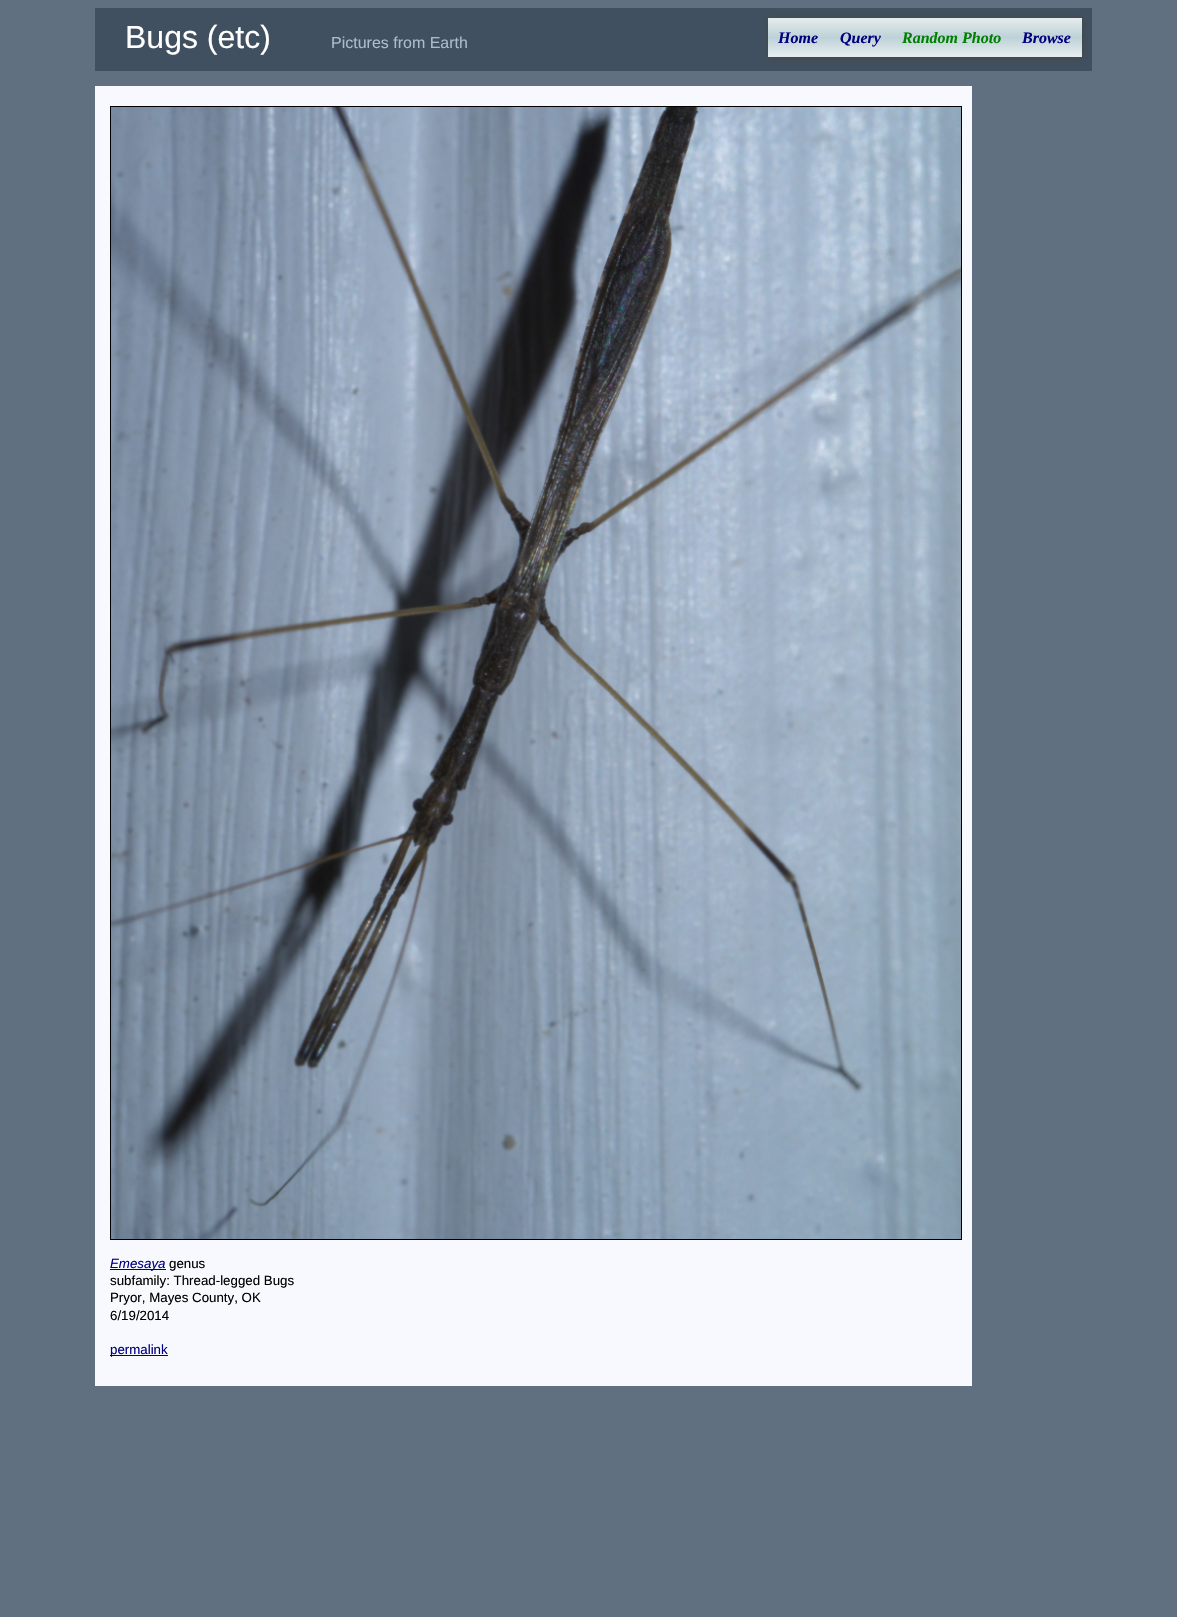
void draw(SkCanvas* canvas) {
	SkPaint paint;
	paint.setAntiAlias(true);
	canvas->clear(0xff607080);
	paint.setColor(0xff405060);
	canvas->drawRect(SkRect::MakeXYWH(95, 8, 997, 63), paint);
	SkFont f1(fontMgr->matchFamilyStyle("Liberation Sans", SkFontStyle::Normal()), 32);
	f1.setSubpixel(true);
	paint.setColor(0xffffffff);
	canvas->drawString("Bugs (etc)", 125, 48, f1, paint);
	SkFont f2(fontMgr->matchFamilyStyle("Liberation Sans", SkFontStyle::Normal()), 16);
	f2.setSubpixel(true);
	paint.setColor(0xffaabbcc);
	canvas->drawString("Pictures from Earth", 331, 48, f2, paint);
	paint.setColor(0xff444444);
	paint.setMaskFilter(SkMaskFilter::MakeBlur(kNormal_SkBlurStyle, 4));
	canvas->drawRect(SkRect::MakeXYWH(769, 19, 314, 39), paint);
	paint.setMaskFilter(nullptr);
	{
		const SkColor colors[] = {0xffe6ecee, 0xffbdd2d7, 0xffe8eef0};
		const float stops[] = {0, 0.5, 1};
		const SkPoint ends[] = {{925, 18}, {925, 57}};
		paint.setShader(SkGradientShader::MakeLinear(ends, colors, stops, 3, SkTileMode::kClamp));
		paint.setAlpha(255);
	}
	canvas->drawRect(SkRect::MakeXYWH(768, 18, 314, 39), paint);
	SkFont f3(fontMgr->matchFamilyStyle("Liberation Serif", SkFontStyle::BoldItalic()), 16);
	f3.setSubpixel(true);
	paint.setShader(nullptr);
	paint.setColor(0xff000080);
	canvas->drawString("Home", 778, 43, f3, paint);
	canvas->drawString("Query", 840, 43, f3, paint);
	paint.setColor(0xff008000);
	canvas->drawString("Random Photo", 902, 43, f3, paint);
	paint.setColor(0xff000080);
	canvas->drawString("Browse", 1022, 43, f3, paint);
	paint.setColor(0xfff8f8ff);
	canvas->drawRect(SkRect::MakeXYWH(95, 86, 877, 1300), paint);
	paint.setStroke(true);
	paint.setStrokeWidth(1);
	paint.setColor(0xff000000);
	canvas->drawRect(SkRect::MakeXYWH(110.5, 106.5, 851, 1133), paint);
	canvas->drawImageRect(SkImages::DeferredFromEncodedData(SkData::MakeFromFileName("img1.png")), SkRect::MakeXYWH(111, 107, 850, 1132), SkSamplingOptions());
	paint.setStroke(false);
	paint.setColor(0xff000080);
	canvas->drawRect(SkRect::MakeXYWH(110, 1269, 56, 1), paint);
	SkFont f4(fontMgr->matchFamilyStyle("Liberation Sans", SkFontStyle::Italic()), 13.3);
	f4.setSubpixel(true);
	canvas->drawString("Emesaya", 110, 1268, f4, paint);
	SkFont f5(fontMgr->matchFamilyStyle("Liberation Sans", SkFontStyle::Normal()), 13.3);
	f5.setSubpixel(true);
	paint.setColor(0xff000000);
	canvas->drawString("genus", 169, 1268, f5, paint);
	canvas->drawString("subfamily: Thread-legged Bugs", 110, 1285, f5, paint);
	canvas->drawString("Pryor, Mayes County, OK", 110, 1302, f5, paint);
	canvas->drawString("6/19/2014", 110, 1320, f5, paint);
	paint.setColor(0xff000080);
	canvas->drawRect(SkRect::MakeXYWH(110, 1355, 58, 1), paint);
	canvas->drawString("permalink", 110, 1354, f5, paint);
}
